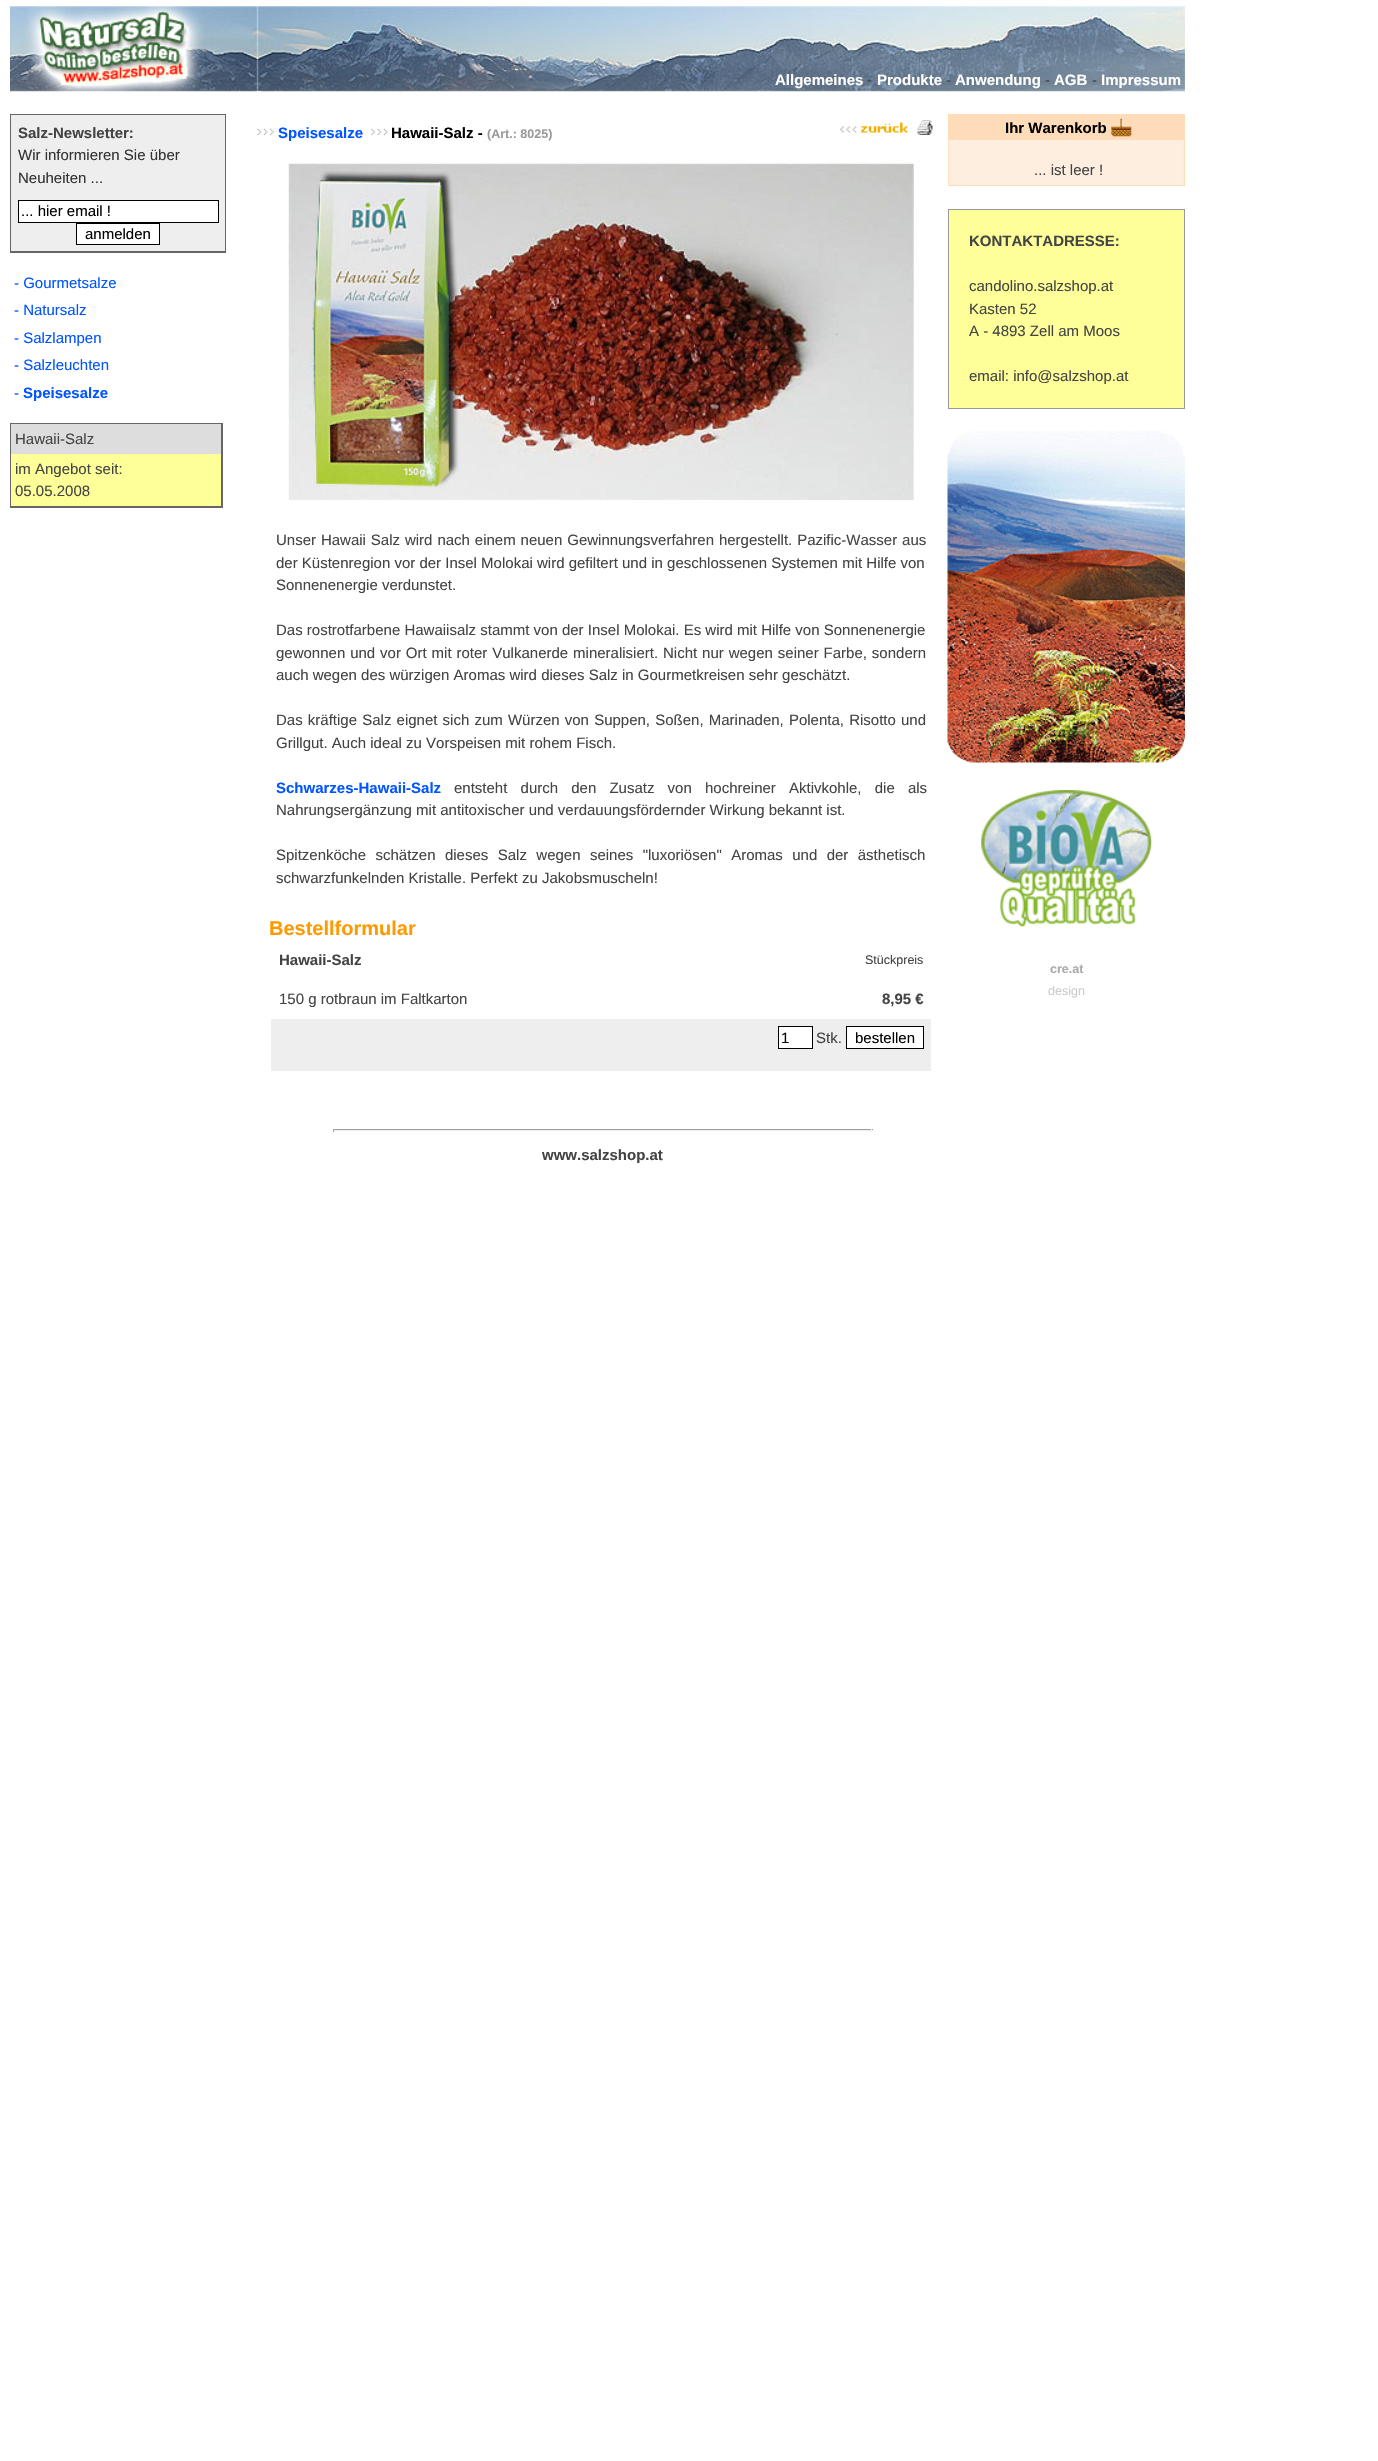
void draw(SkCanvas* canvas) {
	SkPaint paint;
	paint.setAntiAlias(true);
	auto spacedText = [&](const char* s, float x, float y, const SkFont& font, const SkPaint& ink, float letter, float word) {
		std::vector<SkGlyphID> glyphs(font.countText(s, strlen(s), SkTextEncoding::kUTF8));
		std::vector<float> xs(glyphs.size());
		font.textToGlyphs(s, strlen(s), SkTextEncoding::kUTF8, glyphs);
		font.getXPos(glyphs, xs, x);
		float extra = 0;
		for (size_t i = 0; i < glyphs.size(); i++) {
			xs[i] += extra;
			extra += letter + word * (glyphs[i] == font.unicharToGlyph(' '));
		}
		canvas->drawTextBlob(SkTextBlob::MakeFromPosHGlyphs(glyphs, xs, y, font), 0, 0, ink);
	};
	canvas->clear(0xffffffff);
	canvas->drawImageRect(SkImages::DeferredFromEncodedData(SkData::MakeFromFileName("img2.png")), SkRect::MakeXYWH(257, 6, 928, 86), SkSamplingOptions());
	canvas->drawImageRect(SkImages::DeferredFromEncodedData(SkData::MakeFromFileName("img1.png")), SkRect::MakeXYWH(10, 6, 248, 86), SkSamplingOptions());
	SkFont f1(fontMgr->matchFamilyStyle("Liberation Sans", SkFontStyle::Bold()), 15);
	f1.setSubpixel(true);
	paint.setColor(0xffffffff);
	canvas->drawString("Allgemeines", 775, 85, f1, paint);
	SkFont f2(fontMgr->matchFamilyStyle("Liberation Sans", SkFontStyle::Normal()), 15);
	f2.setSubpixel(true);
	paint.setColor(0xff444444);
	canvas->drawString("-", 867, 85, f2, paint);
	paint.setColor(0xffffffff);
	canvas->drawString("Produkte", 877, 85, f1, paint);
	paint.setColor(0xff444444);
	canvas->drawString("-", 946, 85, f2, paint);
	paint.setColor(0xffffffff);
	canvas->drawString("Anwendung", 955, 85, f1, paint);
	paint.setColor(0xff444444);
	canvas->drawString("-", 1045, 85, f2, paint);
	paint.setColor(0xffffffff);
	canvas->drawString("AGB", 1054, 85, f1, paint);
	paint.setColor(0xff444444);
	canvas->drawString("-", 1092, 85, f2, paint);
	paint.setColor(0xffffffff);
	canvas->drawString("Impressum", 1101, 85, f1, paint);
	paint.setColor(0xff666666);
	canvas->drawRect(SkRect::MakeXYWH(10, 114, 216, 139), paint);
	paint.setColor(0xffeeeeee);
	canvas->drawRect(SkRect::MakeXYWH(11, 115, 214, 136), paint);
	paint.setColor(0xff444444);
	canvas->drawString("Salz-Newsletter:", 18, 138, f1, paint);
	paint.setColor(0xff333333);
	canvas->drawString("Wir informieren Sie über", 18, 160, f2, paint);
	canvas->drawString("Neuheiten ...", 18, 183, f2, paint);
	paint.setColor(0xffffffff);
	canvas->drawRect(SkRect::MakeXYWH(18.5, 200.5, 200, 22), paint);
	paint.setStroke(true);
	paint.setStrokeWidth(1);
	paint.setColor(0xff000000);
	canvas->drawRect(SkRect::MakeXYWH(18.5, 200.5, 200, 22), paint);
	paint.setStroke(false);
	canvas->drawString("... hier email !", 21, 216, f2, paint);
	paint.setColor(0xffffffff);
	canvas->drawRect(SkRect::MakeXYWH(76.5, 223.5, 83, 21), paint);
	paint.setStroke(true);
	paint.setColor(0xff000000);
	canvas->drawRect(SkRect::MakeXYWH(76.5, 223.5, 83, 21), paint);
	paint.setStroke(false);
	canvas->drawString("anmelden", 85, 239, f2, paint);
	paint.setColor(0xff0055ff);
	canvas->drawString("- Gourmetsalze", 14, 288, f2, paint);
	canvas->drawString("- Natursalz", 14, 315, f2, paint);
	canvas->drawString("- Salzlampen", 14, 343, f2, paint);
	canvas->drawString("- Salzleuchten", 14, 370, f2, paint);
	canvas->drawString("-", 14, 398, f2, paint);
	canvas->drawString("Speisesalze", 23, 398, f1, paint);
	paint.setColor(0xff666666);
	canvas->drawRect(SkRect::MakeXYWH(10, 423, 213, 85), paint);
	paint.setColor(0xffdddddd);
	canvas->drawRect(SkRect::MakeXYWH(11, 424, 210, 30), paint);
	paint.setColor(0xff444444);
	canvas->drawString("Hawaii-Salz", 15, 444, f2, paint);
	paint.setColor(0xffffff99);
	canvas->drawRect(SkRect::MakeXYWH(11, 454, 210, 52), paint);
	paint.setColor(0xff444444);
	canvas->drawString("im Angebot seit:", 15, 474, f2, paint);
	canvas->drawString("05.05.2008", 15, 496, f2, paint);
	canvas->drawImageRect(SkImages::DeferredFromEncodedData(SkData::MakeFromFileName("img3.png")), SkRect::MakeXYWH(257, 91, 5, 1), SkSamplingOptions());
	canvas->drawImageRect(SkImages::DeferredFromEncodedData(SkData::MakeFromFileName("img4.png")), SkRect::MakeXYWH(257, 128, 17, 8), SkSamplingOptions());
	paint.setColor(0xff0055ff);
	canvas->drawString("Speisesalze", 278, 138, f1, paint);
	canvas->drawImageRect(SkImages::DeferredFromEncodedData(SkData::MakeFromFileName("img5.png")), SkRect::MakeXYWH(371, 128, 17, 8), SkSamplingOptions());
	paint.setColor(0xff000000);
	canvas->drawString("Hawaii-Salz -", 391, 138, f1, paint);
	SkFont f3(fontMgr->matchFamilyStyle("Liberation Sans", SkFontStyle::Bold()), 12.5);
	f3.setSubpixel(true);
	paint.setColor(0xff999999);
	canvas->drawString("(Art.: 8025)", 487, 138, f3, paint);
	canvas->drawImageRect(SkImages::DeferredFromEncodedData(SkData::MakeFromFileName("img6.png")), SkRect::MakeXYWH(839, 122, 69, 11), SkSamplingOptions());
	canvas->drawImageRect(SkImages::DeferredFromEncodedData(SkData::MakeFromFileName("img7.png")), SkRect::MakeXYWH(917, 120, 16, 15), SkSamplingOptions());
	canvas->drawImageRect(SkImages::DeferredFromEncodedData(SkData::MakeFromFileName("img8.png")), SkRect::MakeXYWH(288, 163, 626, 337), SkSamplingOptions());
	paint.setColor(0xff444444);
	spacedText("Unser Hawaii Salz wird nach einem neuen Gewinnungsverfahren hergestellt. Pazific-Wasser aus", 276, 545, f2, paint, 0, 0.75);
	canvas->drawString("der Küstenregion vor der Insel Molokai wird gefiltert und in geschlossenen Systemen mit Hilfe von", 276, 568, f2, paint);
	canvas->drawString("Sonnenenergie verdunstet.", 276, 590, f2, paint);
	canvas->drawString("Das rostrotfarbene Hawaiisalz stammt von der Insel Molokai. Es wird mit Hilfe von Sonnenenergie", 276, 635, f2, paint);
	spacedText("gewonnen und vor Ort mit roter Vulkanerde mineralisiert. Nicht nur wegen seiner Farbe, sondern", 276, 658, f2, paint, 0, 0.75);
	canvas->drawString("auch wegen des würzigen Aromas wird dieses Salz in Gourmetkreisen sehr geschätzt.", 276, 680, f2, paint);
	spacedText("Das kräftige Salz eignet sich zum Würzen von Suppen, Soßen, Marinaden, Polenta, Risotto und", 276, 725, f2, paint, 0, 1);
	canvas->drawString("Grillgut. Auch ideal zu Vorspeisen mit rohem Fisch.", 276, 748, f2, paint);
	paint.setColor(0xff0055ff);
	canvas->drawString("Schwarzes-Hawaii-Salz", 276, 793, f1, paint);
	paint.setColor(0xff444444);
	spacedText("entsteht durch den Zusatz von hochreiner Aktivkohle, die als", 454, 793, f2, paint, 0, 9);
	canvas->drawString("Nahrungsergänzung mit antitoxischer und verdauungsfördernder Wirkung bekannt ist.", 276, 815, f2, paint);
	spacedText("Spitzenköche schätzen dieses Salz wegen seines \"luxoriösen\" Aromas und der ästhetisch", 276, 860, f2, paint, 0, 5.25);
	canvas->drawString("schwarzfunkelnden Kristalle. Perfekt zu Jakobsmuscheln!", 276, 883, f2, paint);
	SkFont f4(fontMgr->matchFamilyStyle("Liberation Sans", SkFontStyle::Bold()), 20);
	f4.setSubpixel(true);
	paint.setColor(0xffff9900);
	canvas->drawString("Bestellformular", 269, 935, f4, paint);
	paint.setColor(0xff444444);
	canvas->drawString("Hawaii-Salz", 279, 965, f1, paint);
	SkFont f5(fontMgr->matchFamilyStyle("Liberation Sans", SkFontStyle::Normal()), 12.5);
	f5.setSubpixel(true);
	canvas->drawString("Stückpreis", 865, 964, f5, paint);
	canvas->drawString("150 g rotbraun im Faltkarton", 279, 1004, f2, paint);
	canvas->drawString("8,95 €", 882, 1004, f1, paint);
	paint.setColor(0xffeeeeee);
	canvas->drawRect(SkRect::MakeXYWH(271, 1019, 660, 52), paint);
	paint.setColor(0xffffffff);
	canvas->drawRect(SkRect::MakeXYWH(778.5, 1026.5, 34, 22), paint);
	paint.setStroke(true);
	paint.setColor(0xff000000);
	canvas->drawRect(SkRect::MakeXYWH(778.5, 1026.5, 34, 22), paint);
	paint.setStroke(false);
	canvas->drawString("1", 781, 1043, f2, paint);
	paint.setColor(0xff444444);
	canvas->drawString("Stk.", 816, 1043, f2, paint);
	paint.setColor(0xffffffff);
	canvas->drawRect(SkRect::MakeXYWH(846.5, 1026.5, 77, 22), paint);
	paint.setStroke(true);
	paint.setColor(0xff000000);
	canvas->drawRect(SkRect::MakeXYWH(846.5, 1026.5, 77, 22), paint);
	paint.setStroke(false);
	canvas->drawString("bestellen", 855, 1043, f2, paint);
	paint.setColor(0xff9f9f9f);
	canvas->drawRect(SkRect::MakeXYWH(333, 1129, 540, 1), paint);
	paint.setColor(0xffeeeeee);
	canvas->drawRect(SkRect::MakeXYWH(871, 1129, 1, 3), paint);
	canvas->drawRect(SkRect::MakeXYWH(333, 1130, 540, 1), paint);
	paint.setColor(0xff9f9f9f);
	canvas->drawRect(SkRect::MakeXYWH(333, 1129, 1, 3), paint);
	paint.setColor(0xff444444);
	canvas->drawString("www.salzshop.at", 542, 1160, f1, paint);
	paint.setColor(0xfffedcba);
	canvas->drawRect(SkRect::MakeXYWH(948, 114, 237, 72), paint);
	canvas->drawImageRect(SkImages::DeferredFromEncodedData(SkData::MakeFromFileName("img9.png")), SkRect::MakeXYWH(948, 139, 236, 46), SkSamplingOptions());
	paint.setColor(0xff000000);
	canvas->drawString("Ihr Warenkorb", 1005, 133, f1, paint);
	canvas->drawImageRect(SkImages::DeferredFromEncodedData(SkData::MakeFromFileName("img10.png")), SkRect::MakeXYWH(1111, 118, 21, 19), SkSamplingOptions());
	paint.setColor(0xff444444);
	canvas->drawString("... ist leer !", 1034, 175, f2, paint);
	paint.setColor(0xff999999);
	canvas->drawRect(SkRect::MakeXYWH(948, 209, 237, 200), paint);
	paint.setColor(0xffffff99);
	canvas->drawRect(SkRect::MakeXYWH(949, 210, 235, 198), paint);
	paint.setColor(0xff444444);
	canvas->drawString("KONTAKTADRESSE:", 969, 246, f1, paint);
	canvas->drawString("candolino.salzshop.at", 969, 291, f2, paint);
	canvas->drawString("Kasten 52", 969, 314, f2, paint);
	canvas->drawString("A - 4893 Zell am Moos", 969, 336, f2, paint);
	canvas->drawString("email: info@salzshop.at", 969, 381, f2, paint);
	canvas->drawImageRect(SkImages::DeferredFromEncodedData(SkData::MakeFromFileName("img11.png")), SkRect::MakeXYWH(947, 431, 238, 332), SkSamplingOptions());
	canvas->drawImageRect(SkImages::DeferredFromEncodedData(SkData::MakeFromFileName("img12.png")), SkRect::MakeXYWH(981, 790, 171, 137), SkSamplingOptions());
	paint.setColor(0xffaaaaaa);
	canvas->drawString("cre.at", 1050, 973, f3, paint);
	paint.setColor(0xffcccccc);
	canvas->drawString("design", 1048, 995, f5, paint);
}
